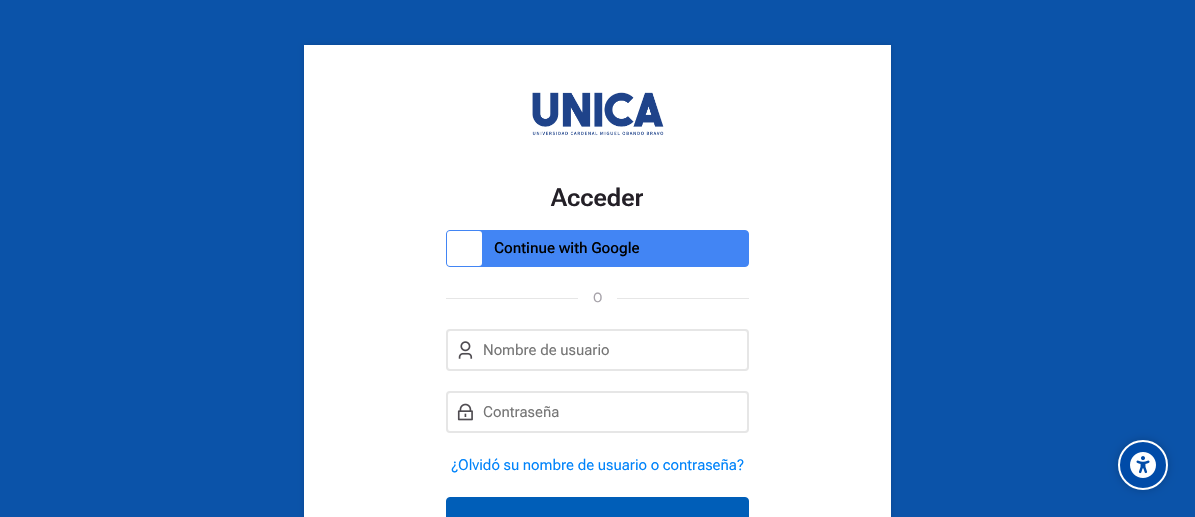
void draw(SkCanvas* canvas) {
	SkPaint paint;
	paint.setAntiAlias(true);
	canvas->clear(0xff0b53a9);
	paint.setColor(0x26000000);
	paint.setMaskFilter(SkMaskFilter::MakeBlur(kNormal_SkBlurStyle, 2.5));
	canvas->drawRect(SkRect::MakeXYWH(304, 45, 587, 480), paint);
	paint.setMaskFilter(nullptr);
	paint.setColor(0xffffffff);
	canvas->drawRect(SkRect::MakeXYWH(304, 45, 587, 472), paint);
	canvas->drawImageRect(SkImages::DeferredFromEncodedData(SkData::MakeFromFileName("img1.png")), SkRect::MakeXYWH(532, 92, 132, 44), SkSamplingOptions());
	SkFont f1(fontMgr->matchFamilyStyle("Roboto Flex", SkFontStyle(600, SkFontStyle::kNormal_Width, SkFontStyle::kUpright_Slant)), 25);
	f1.setSubpixel(true);
	paint.setColor(0xff242027);
	canvas->drawString("Acceder", 551, 206, f1, paint);
	paint.setColor(0xff4285f4);
	canvas->drawRoundRect(SkRect::MakeXYWH(446.5, 230.5, 302, 36), 3.5, 3.5, paint);
	paint.setStroke(true);
	paint.setStrokeWidth(1);
	canvas->drawRoundRect(SkRect::MakeXYWH(446.5, 230.5, 302, 36), 3.5, 3.5, paint);
	paint.setStroke(false);
	paint.setColor(0xffffffff);
	canvas->drawRoundRect(SkRect::MakeXYWH(447, 231, 35, 35), 3, 3, paint);
	SkFont f2(fontMgr->matchFamilyStyle("Roboto Flex", SkFontStyle(500, SkFontStyle::kNormal_Width, SkFontStyle::kUpright_Slant)), 15);
	f2.setSubpixel(true);
	paint.setColor(0xff000000);
	canvas->drawString("Continue with Google", 494, 253, f2, paint);
	paint.setColor(0xffe6e6e6);
	canvas->drawRect(SkRect::MakeXYWH(446, 298, 132, 1), paint);
	SkFont f3(fontMgr->matchFamilyStyle("Roboto Flex", SkFontStyle::Normal()), 13);
	f3.setSubpixel(true);
	paint.setColor(0xffa6a2a9);
	canvas->drawString("O", 593, 302, f3, paint);
	paint.setColor(0xffe6e6e6);
	canvas->drawRect(SkRect::MakeXYWH(617, 298, 132, 1), paint);
	paint.setStroke(true);
	paint.setStrokeWidth(2);
	canvas->drawRoundRect(SkRect::MakeXYWH(447, 330, 301, 40), 3, 3, paint);
	canvas->drawImageRect(SkImages::DeferredFromEncodedData(SkData::MakeFromFileName("img2.png")), SkRect::MakeXYWH(458, 341, 15, 18), SkSamplingOptions());
	SkFont f4(fontMgr->matchFamilyStyle("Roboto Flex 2", SkFontStyle::Normal()), 15);
	f4.setSubpixel(true);
	paint.setStroke(false);
	paint.setColor(0xff757575);
	canvas->drawString("Nombre de usuario", 483, 355, f4, paint);
	paint.setStroke(true);
	paint.setColor(0xffe6e6e6);
	canvas->drawRoundRect(SkRect::MakeXYWH(447, 392, 301, 40), 3, 3, paint);
	canvas->drawImageRect(SkImages::DeferredFromEncodedData(SkData::MakeFromFileName("img3.png")), SkRect::MakeXYWH(457, 403, 16, 18), SkSamplingOptions());
	paint.setStroke(false);
	paint.setColor(0xff757575);
	canvas->drawString("Contraseña", 483, 417, f4, paint);
	paint.setColor(0xff0083fa);
	canvas->drawString("¿Olvidó su nombre de usuario o contraseña?", 451, 470, f4, paint);
	paint.setColor(0xff005eb8);
	canvas->drawRoundRect(SkRect::MakeXYWH(446.5, 497.5, 302, 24), 3.5, 3.5, paint);
	paint.setStroke(true);
	paint.setStrokeWidth(1);
	canvas->drawRoundRect(SkRect::MakeXYWH(446.5, 497.5, 302, 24), 3.5, 3.5, paint);
	paint.setStroke(false);
	paint.setColor(0x33000000);
	paint.setMaskFilter(SkMaskFilter::MakeBlur(kNormal_SkBlurStyle, 5));
	canvas->drawRoundRect(SkRect::MakeXYWH(1118, 440, 50, 50), 25, 25, paint);
	paint.setMaskFilter(nullptr);
	paint.setColor(0xff004ba8);
	canvas->drawCircle(1143, 465, 24, paint);
	paint.setStroke(true);
	paint.setStrokeWidth(2);
	paint.setColor(0xffffffff);
	canvas->drawCircle(1143, 465, 24, paint);
	canvas->drawImageRect(SkImages::DeferredFromEncodedData(SkData::MakeFromFileName("img4.png")), SkRect::MakeXYWH(1130, 452, 26, 26), SkSamplingOptions());
}
